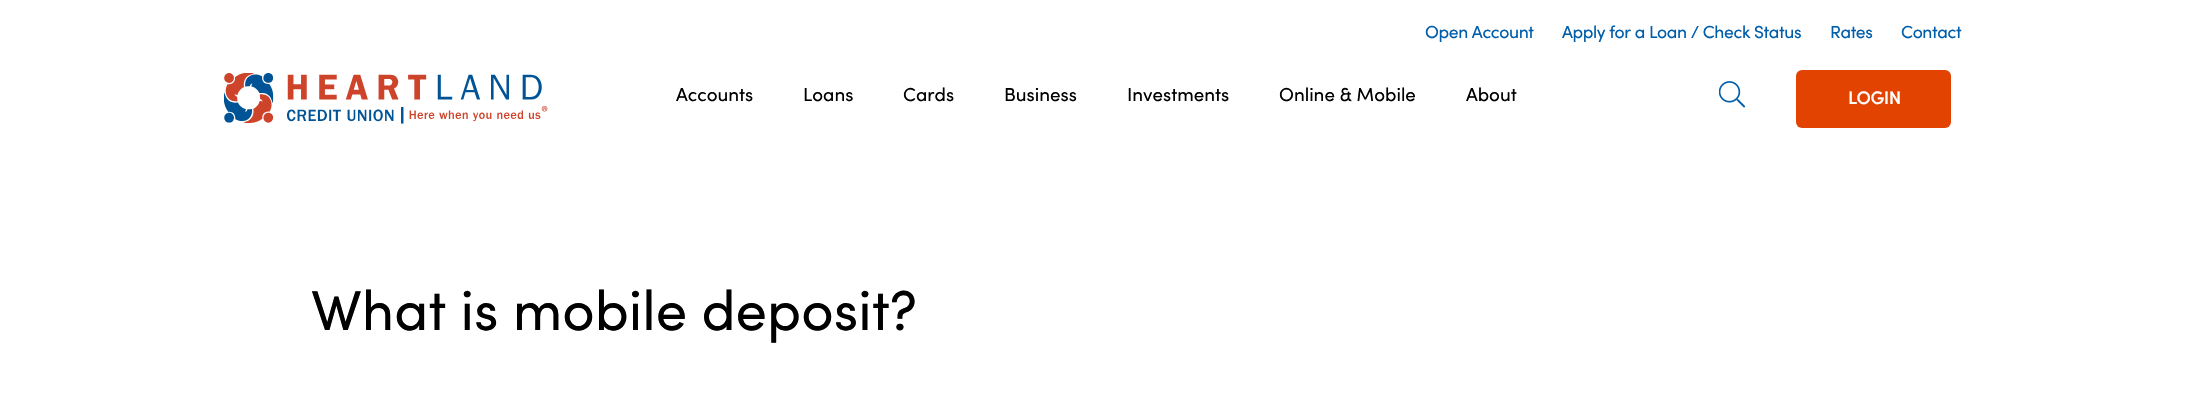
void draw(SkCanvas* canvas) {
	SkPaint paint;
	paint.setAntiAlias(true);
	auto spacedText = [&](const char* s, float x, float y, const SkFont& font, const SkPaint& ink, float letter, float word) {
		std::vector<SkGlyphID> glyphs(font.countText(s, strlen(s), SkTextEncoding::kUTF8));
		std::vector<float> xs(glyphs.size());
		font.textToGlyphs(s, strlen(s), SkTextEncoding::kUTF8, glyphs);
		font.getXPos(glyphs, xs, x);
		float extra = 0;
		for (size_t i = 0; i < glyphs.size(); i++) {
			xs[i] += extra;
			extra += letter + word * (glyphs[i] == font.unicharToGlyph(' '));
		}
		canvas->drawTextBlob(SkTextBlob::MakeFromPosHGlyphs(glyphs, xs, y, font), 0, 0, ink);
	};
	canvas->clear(0xffffffff);
	SkFont f1(fontMgr->matchFamilyStyle("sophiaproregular", SkFontStyle::Normal()), 17.5);
	f1.setSubpixel(true);
	paint.setColor(0xff005daa);
	spacedText("Open Account", 1425, 38, f1, paint, -0.4, 0);
	spacedText("Apply for a Loan / Check Status", 1562, 38, f1, paint, -0.4, 0);
	spacedText("Rates", 1830, 38, f1, paint, -0.4, 0);
	spacedText("Contact", 1901, 38, f1, paint, -0.4, 0);
	canvas->drawImageRect(SkImages::DeferredFromEncodedData(SkData::MakeFromFileName("img1.png")), SkRect::MakeXYWH(224, 73, 324, 51), SkSamplingOptions());
	SkFont f2(fontMgr->matchFamilyStyle("sophiaproregular", SkFontStyle::Normal()), 18.75);
	f2.setSubpixel(true);
	paint.setColor(0xff000000);
	canvas->drawString("Accounts", 676, 101, f2, paint);
	canvas->drawString("Loans", 803, 101, f2, paint);
	canvas->drawString("Cards", 903, 101, f2, paint);
	canvas->drawString("Business", 1004, 101, f2, paint);
	canvas->drawString("Investments", 1127, 101, f2, paint);
	canvas->drawString("Online & Mobile", 1279, 101, f2, paint);
	canvas->drawString("About", 1466, 101, f2, paint);
	canvas->drawImageRect(SkImages::DeferredFromEncodedData(SkData::MakeFromFileName("img2.png")), SkRect::MakeXYWH(1719, 81, 27, 27), SkSamplingOptions());
	paint.setColor(0xffe24301);
	canvas->drawRoundRect(SkRect::MakeXYWH(1796, 70, 155, 58), 6, 6, paint);
	SkFont f3(fontMgr->matchFamilyStyle("sophiaproregular", SkFontStyle::Bold()), 17.5);
	f3.setSubpixel(true);
	paint.setColor(0xffffffff);
	canvas->drawString("LOGIN", 1848, 104, f3, paint);
	SkFont f4(fontMgr->matchFamilyStyle("sophiaproregular", SkFontStyle::Normal()), 56.25);
	f4.setSubpixel(true);
	paint.setColor(0xff000000);
	canvas->drawString("What is mobile deposit?", 311, 330, f4, paint);
}
